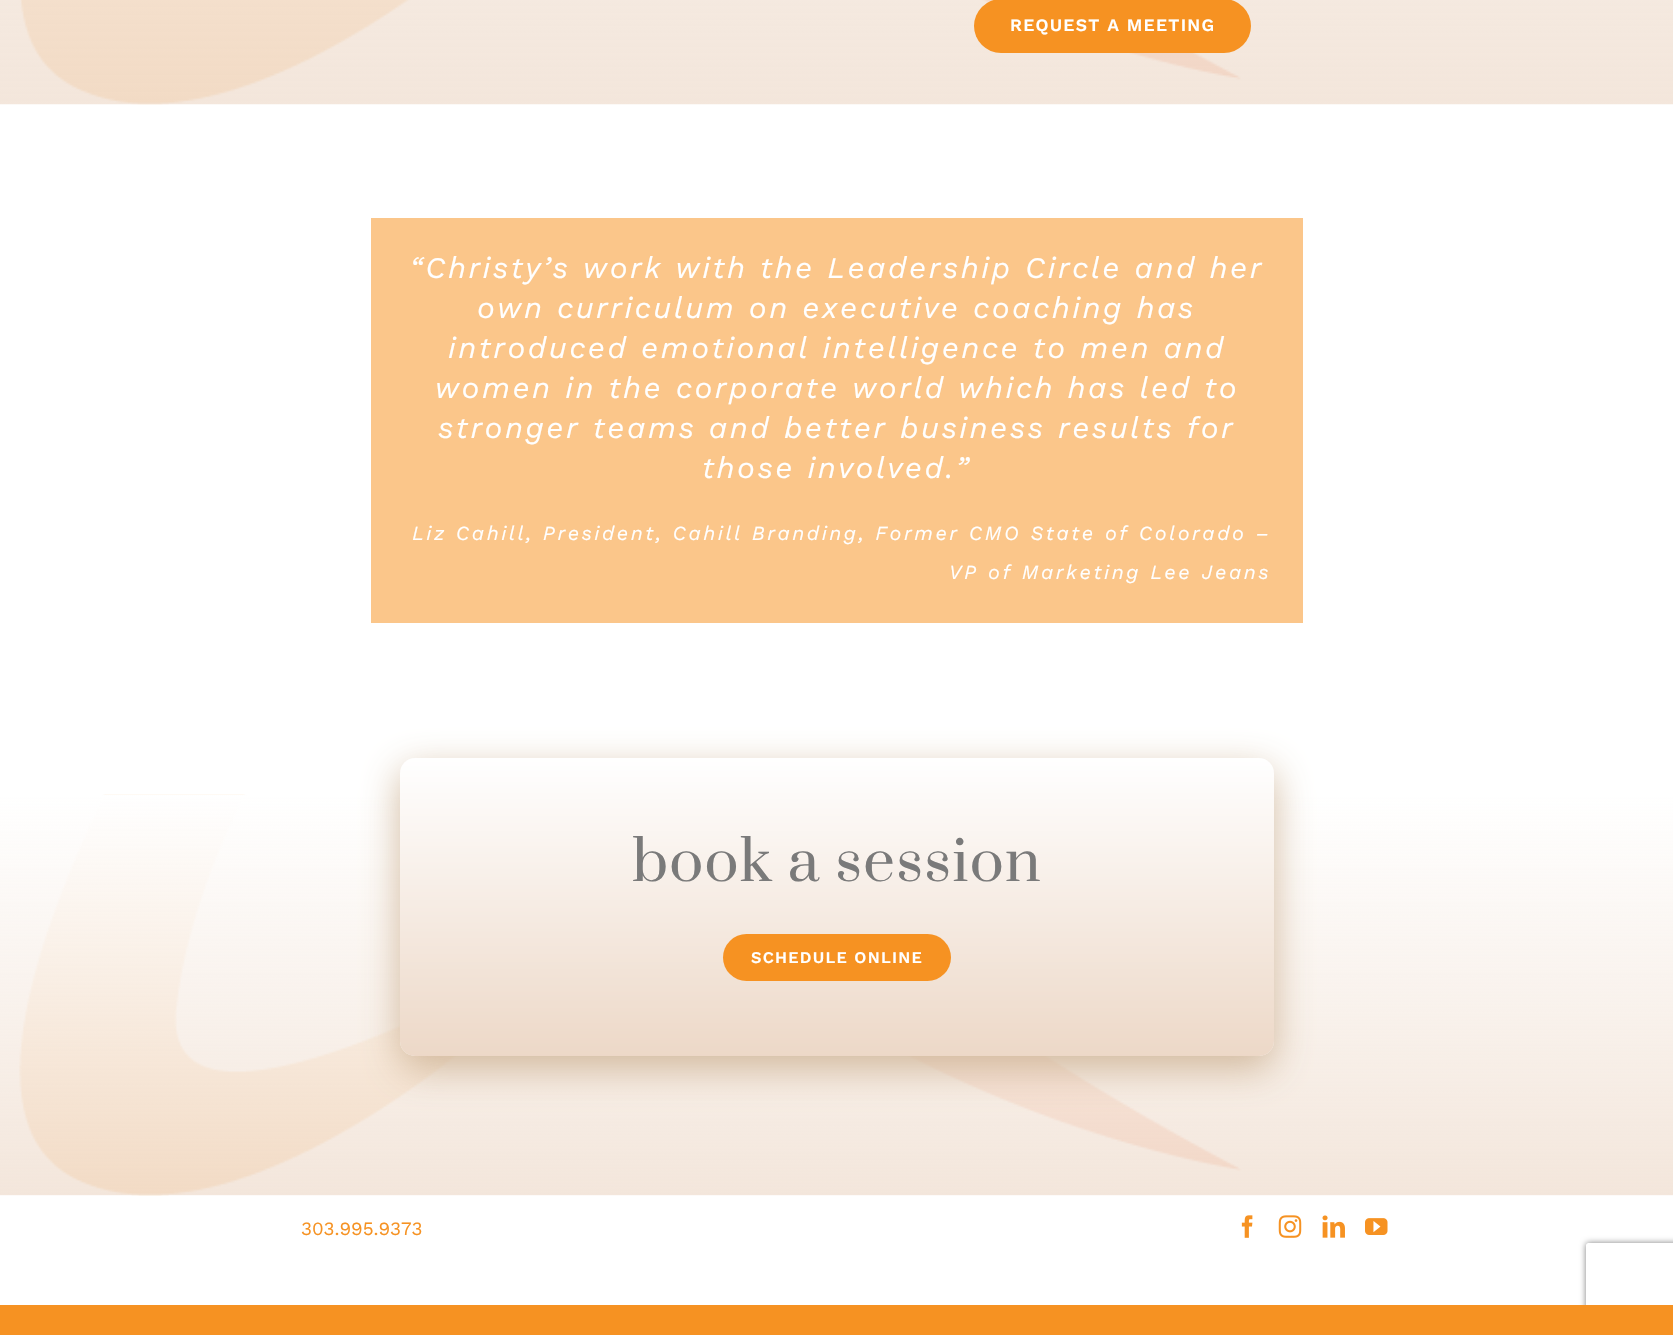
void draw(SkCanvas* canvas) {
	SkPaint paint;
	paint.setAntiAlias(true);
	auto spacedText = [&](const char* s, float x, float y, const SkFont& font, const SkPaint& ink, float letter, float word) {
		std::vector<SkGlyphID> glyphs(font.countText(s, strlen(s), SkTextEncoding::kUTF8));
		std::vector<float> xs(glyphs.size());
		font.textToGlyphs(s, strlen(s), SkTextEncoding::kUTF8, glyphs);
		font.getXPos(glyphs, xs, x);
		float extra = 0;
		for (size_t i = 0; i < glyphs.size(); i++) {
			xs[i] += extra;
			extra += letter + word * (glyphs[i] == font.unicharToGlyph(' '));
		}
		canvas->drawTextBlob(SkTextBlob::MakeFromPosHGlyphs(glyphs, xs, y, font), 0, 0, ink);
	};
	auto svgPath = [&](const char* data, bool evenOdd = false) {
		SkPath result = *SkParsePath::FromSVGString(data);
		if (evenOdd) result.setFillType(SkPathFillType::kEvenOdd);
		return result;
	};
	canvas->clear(0xffffffff);
	canvas->drawImageRect(SkImages::DeferredFromEncodedData(SkData::MakeFromFileName("img1.png")), SkRect::MakeXYWH(0, 0, 1673, 105), SkSamplingOptions());
	paint.setColor(0xfff69222);
	canvas->drawRoundRect(SkRect::MakeXYWH(974, -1, 277, 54), 27, 27, paint);
	SkFont f1(fontMgr->matchFamilyStyle("Work Sans", SkFontStyle(600, SkFontStyle::kNormal_Width, SkFontStyle::kUpright_Slant)), 17.5);
	f1.setSubpixel(true);
	paint.setColor(0xffffffff);
	spacedText("REQUEST A MEETING", 1010, 31, f1, paint, 1.25, 0);
	paint.setColor(0xfffbc68a);
	canvas->drawRect(SkRect::MakeXYWH(371, 218, 932, 405), paint);
	SkFont f2(fontMgr->matchFamilyStyle("Work Sans", SkFontStyle::Italic()), 30);
	f2.setSubpixel(true);
	paint.setColor(0xffffffff);
	spacedText("“Christy’s work with the Leadership Circle and her", 410, 278, f2, paint, 2.5, 0);
	spacedText("own curriculum on executive coaching has", 477, 318, f2, paint, 2.5, 0);
	spacedText("introduced emotional intelligence to men and", 448, 358, f2, paint, 2.5, 0);
	spacedText("women in the corporate world which has led to", 435, 398, f2, paint, 2.5, 0);
	spacedText("stronger teams and better business results for", 438, 438, f2, paint, 2.5, 0);
	spacedText("those involved.”", 702, 478, f2, paint, 2.5, 0);
	SkFont f3(fontMgr->matchFamilyStyle("Work Sans", SkFontStyle::Italic()), 20);
	f3.setSubpixel(true);
	spacedText("Liz Cahill, President, Cahill Branding, Former CMO State of Colorado –", 412, 540, f3, paint, 2.5, 0);
	spacedText("VP of Marketing Lee Jeans", 949, 579, f3, paint, 2.5, 0);
	canvas->drawImageRect(SkImages::DeferredFromEncodedData(SkData::MakeFromFileName("img2.png")), SkRect::MakeXYWH(0, 794, 1673, 402), SkSamplingOptions());
	paint.setColor(0xe0ccb092);
	paint.setMaskFilter(SkMaskFilter::MakeBlur(kNormal_SkBlurStyle, 19));
	canvas->drawRoundRect(SkRect::MakeXYWH(400, 770, 874, 299), 15, 15, paint);
	paint.setMaskFilter(nullptr);
	paint.setColor(0xffffffff);
	canvas->drawRoundRect(SkRect::MakeXYWH(400, 758, 874, 298), 15, 15, paint);
	{
		const SkColor colors[] = {0xc2e7ccb6, 0x00e7ccb6};
		const float stops[] = {0, 1};
		const SkPoint ends[] = {{837, 1056}, {837, 758}};
		paint.setShader(SkGradientShader::MakeLinear(ends, colors, stops, 2, SkTileMode::kClamp));
		paint.setAlpha(255);
	}
	canvas->drawRoundRect(SkRect::MakeXYWH(400, 758, 874, 298), 15, 15, paint);
	SkFont f4(fontMgr->matchFamilyStyle("Prata", SkFontStyle::Normal()), 56.25);
	f4.setSubpixel(true);
	paint.setShader(nullptr);
	paint.setColor(0xff7a7a7a);
	spacedText("book a session", 632, 881, f4, paint, 1.25, 0);
	paint.setColor(0xfff69222);
	canvas->drawRoundRect(SkRect::MakeXYWH(723, 934, 228, 47), 23.5, 23.5, paint);
	SkFont f5(fontMgr->matchFamilyStyle("Work Sans", SkFontStyle(600, SkFontStyle::kNormal_Width, SkFontStyle::kUpright_Slant)), 16.25);
	f5.setSubpixel(true);
	paint.setColor(0xffffffff);
	spacedText("SCHEDULE ONLINE", 751, 963, f5, paint, 1.25, 0);
	SkFont f6(fontMgr->matchFamilyStyle("Work Sans", SkFontStyle::Normal()), 18.75);
	f6.setSubpixel(true);
	paint.setColor(0xfff69222);
	canvas->drawString("303.995.9373", 301, 1235, f6, paint);
	canvas->drawImageRect(SkImages::DeferredFromEncodedData(SkData::MakeFromFileName("img3.png")), SkRect::MakeXYWH(1241, 1215, 12, 23), SkSamplingOptions());
	canvas->drawImageRect(SkImages::DeferredFromEncodedData(SkData::MakeFromFileName("img4.png")), SkRect::MakeXYWH(1278, 1215, 24, 23), SkSamplingOptions());
	canvas->drawImageRect(SkImages::DeferredFromEncodedData(SkData::MakeFromFileName("img5.png")), SkRect::MakeXYWH(1322, 1215, 23, 23), SkSamplingOptions());
	canvas->drawImageRect(SkImages::DeferredFromEncodedData(SkData::MakeFromFileName("img6.png")), SkRect::MakeXYWH(1365, 1218, 23, 17), SkSamplingOptions());
	canvas->save();
	canvas->clipPath(svgPath("M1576 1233H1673V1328H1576ZM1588.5 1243H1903.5C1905 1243 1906 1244 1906 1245.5V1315.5C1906 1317 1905 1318 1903.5 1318H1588.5C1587 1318 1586 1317 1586 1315.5V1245.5C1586 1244 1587 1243 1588.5 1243Z", true), true);
	paint.setColor(0xff808080);
	paint.setMaskFilter(SkMaskFilter::MakeBlur(kNormal_SkBlurStyle, 3));
	canvas->drawRoundRect(SkRect::MakeXYWH(1586, 1243, 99, 75), 2.5, 2.5, paint);
	paint.setMaskFilter(nullptr);
	canvas->restore();
	paint.setColor(0xfff69222);
	canvas->drawRect(SkRect::MakeXYWH(0, 1305, 1673, 30), paint);
}
